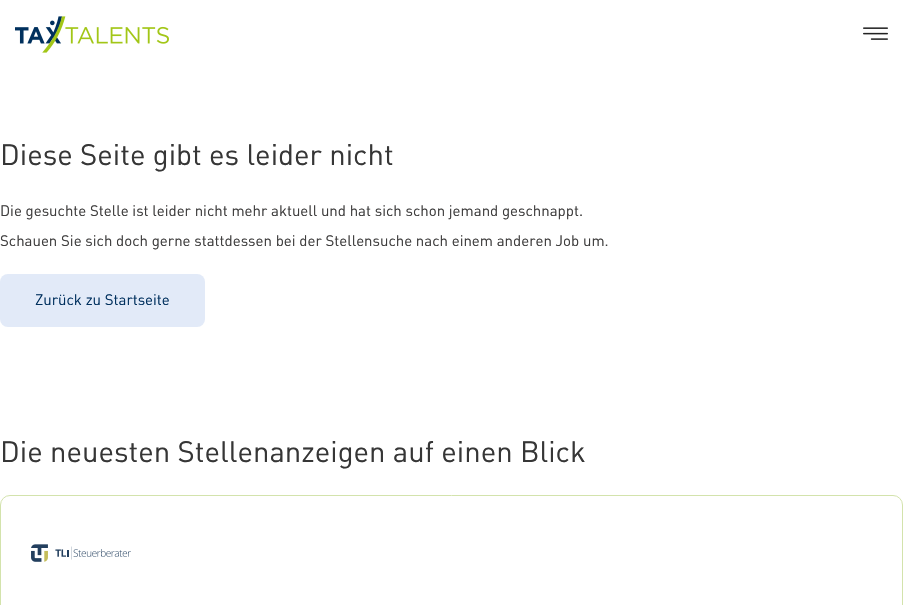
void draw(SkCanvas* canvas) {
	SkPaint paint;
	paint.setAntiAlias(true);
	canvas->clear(0xffffffff);
	canvas->drawImageRect(SkImages::DeferredFromEncodedData(SkData::MakeFromFileName("img1.png")), SkRect::MakeXYWH(15, 16, 154, 37), SkSamplingOptions());
	canvas->drawImageRect(SkImages::DeferredFromEncodedData(SkData::MakeFromFileName("img2.png")), SkRect::MakeXYWH(863, 27, 25, 13), SkSamplingOptions());
	SkFont f1(fontMgr->matchFamilyStyle("DIN", SkFontStyle::Normal()), 29.3);
	f1.setSubpixel(true);
	paint.setColor(0xff363636);
	canvas->drawString("Diese Seite gibt es leider nicht", 0, 165, f1, paint);
	SkFont f2(fontMgr->matchFamilyStyle("DIN", SkFontStyle::Normal()), 15);
	f2.setSubpixel(true);
	paint.setColor(0xff3e3d3d);
	canvas->drawString("Die gesuchte Stelle ist leider nicht mehr aktuell und hat sich schon jemand geschnappt.", 0, 216, f2, paint);
	canvas->drawString("Schauen Sie sich doch gerne stattdessen bei der Stellensuche nach einem anderen Job um.", 0, 246, f2, paint);
	paint.setColor(0xffe2eaf8);
	canvas->drawRoundRect(SkRect::MakeXYWH(0, 274, 205, 53), 8, 8, paint);
	paint.setColor(0xff00305e);
	canvas->drawString("Zurück zu Startseite", 35, 305, f2, paint);
	paint.setColor(0xff363636);
	canvas->drawString("Die neuesten Stellenanzeigen auf einen Blick", 0, 462, f1, paint);
	paint.setStroke(true);
	paint.setStrokeWidth(1);
	paint.setColor(0xffd3e3ac);
	canvas->drawRoundRect(SkRect::MakeXYWH(0.5, 495.5, 902, 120), 9.5, 9.5, paint);
	canvas->drawImageRect(SkImages::DeferredFromEncodedData(SkData::MakeFromFileName("img3.png")), SkRect::MakeXYWH(31, 544, 100, 18), SkSamplingOptions());
}
